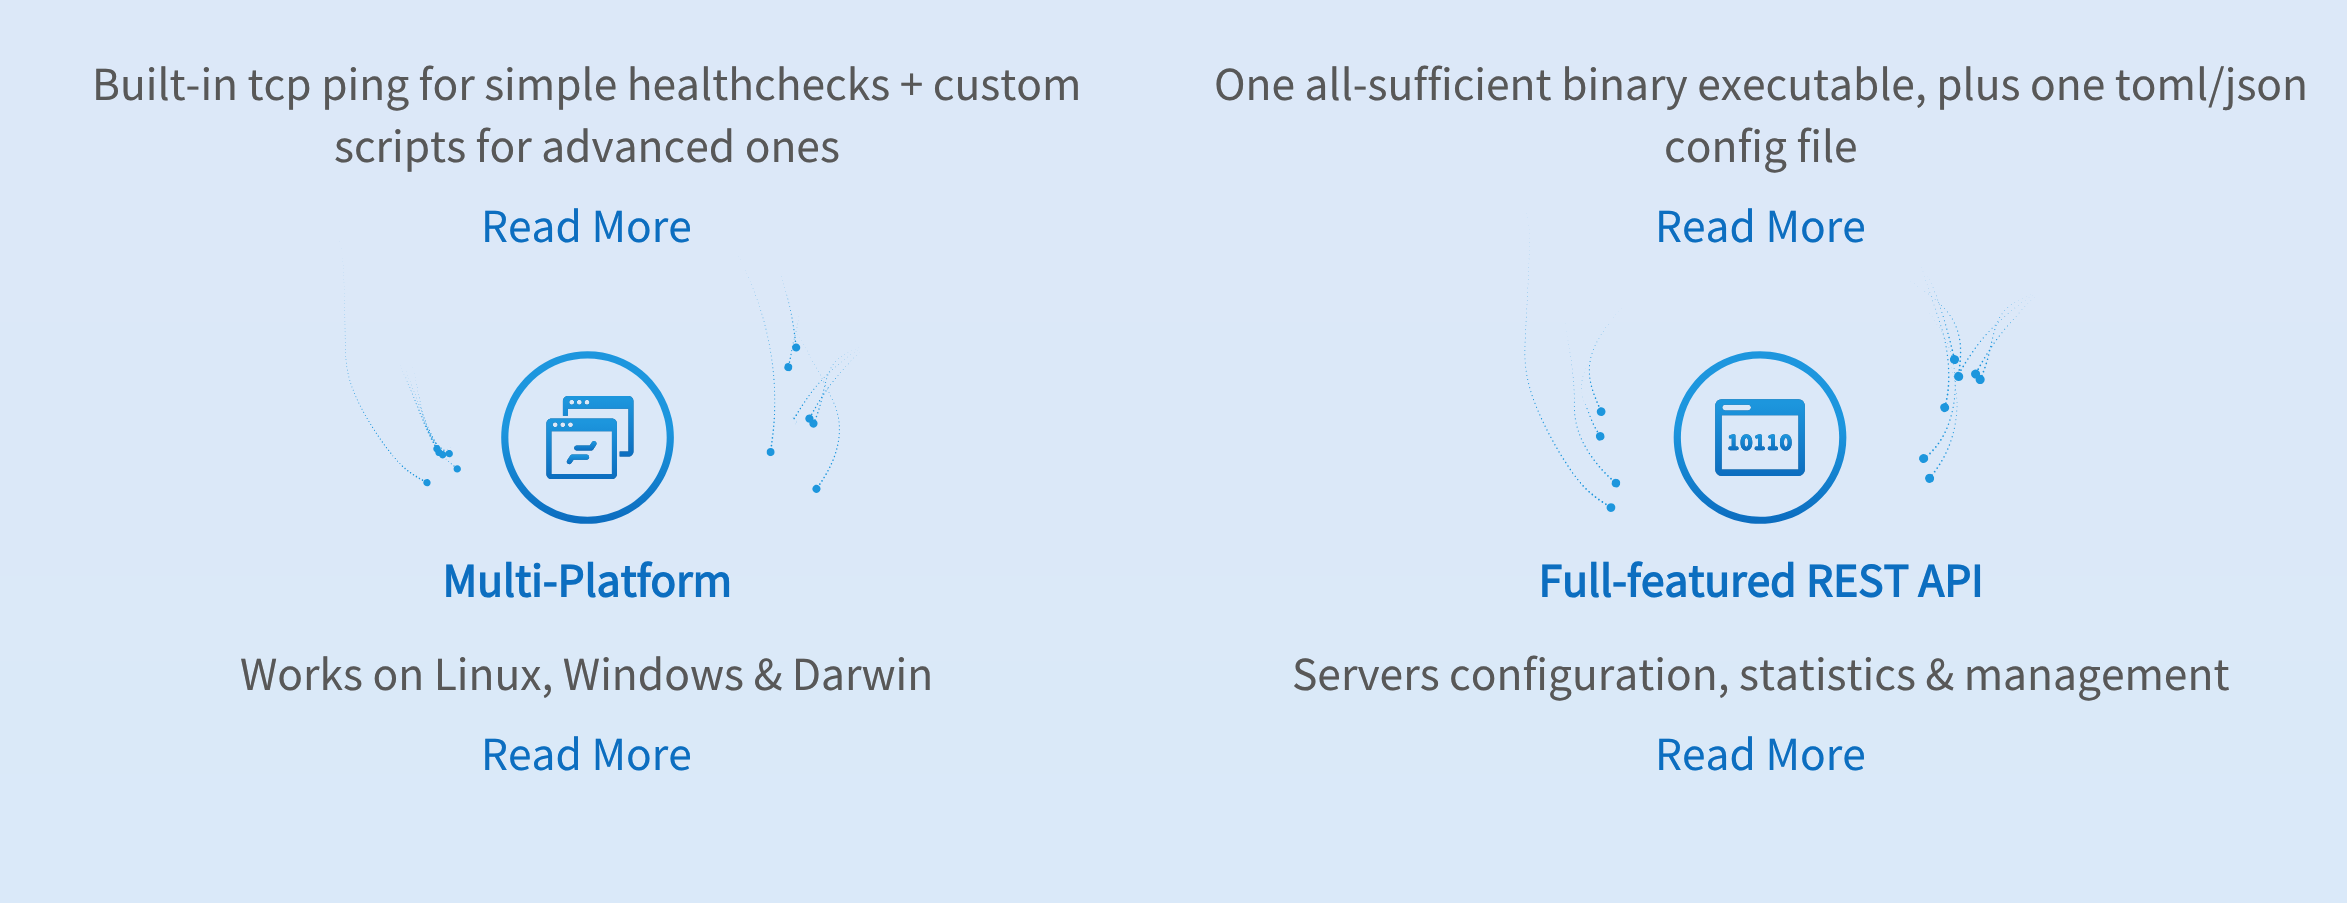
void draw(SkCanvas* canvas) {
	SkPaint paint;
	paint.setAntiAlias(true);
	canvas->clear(0xffffffff);
	{
		const SkColor colors[] = {0xffe0e7f6, 0xffd9e9f9};
		const float stops[] = {0, 1};
		const SkPoint ends[] = {{1174, -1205}, {1174, 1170}};
		paint.setShader(SkGradientShader::MakeLinear(ends, colors, stops, 2, SkTileMode::kClamp));
		paint.setAlpha(255);
	}
	canvas->drawRect(SkRect::MakeXYWH(0, 0, 2347, 903), paint);
	SkFont f1(fontMgr->matchFamilyStyle("Source Sans Pro", SkFontStyle::Normal()), 47.5);
	f1.setSubpixel(true);
	paint.setShader(nullptr);
	paint.setColor(0xff585858);
	canvas->drawString("Built-in tcp ping for simple healthchecks + custom", 92, 100, f1, paint);
	canvas->drawString("scripts for advanced ones", 334, 162, f1, paint);
	paint.setColor(0xff0c6ec0);
	canvas->drawString("Read More", 481, 242, f1, paint);
	paint.setColor(0xff585858);
	canvas->drawString("One all-sufficient binary executable, plus one toml/json", 1214, 100, f1, paint);
	canvas->drawString("config file", 1664, 162, f1, paint);
	paint.setColor(0xff0c6ec0);
	canvas->drawString("Read More", 1655, 242, f1, paint);
	canvas->drawImageRect(SkImages::DeferredFromEncodedData(SkData::MakeFromFileName("img1.png")), SkRect::MakeXYWH(339, 241, 122, 246), SkSamplingOptions());
	canvas->drawImageRect(SkImages::DeferredFromEncodedData(SkData::MakeFromFileName("img2.png")), SkRect::MakeXYWH(501, 351, 173, 173), SkSamplingOptions());
	canvas->drawImageRect(SkImages::DeferredFromEncodedData(SkData::MakeFromFileName("img3.png")), SkRect::MakeXYWH(738, 256, 122, 237), SkSamplingOptions());
	SkFont f2(fontMgr->matchFamilyStyle("Source Sans Pro", SkFontStyle::Bold()), 47.5);
	f2.setSubpixel(true);
	canvas->drawString("Multi-Platform", 442, 597, f2, paint);
	paint.setColor(0xff585858);
	canvas->drawString("Works on Linux, Windows & Darwin", 240, 690, f1, paint);
	paint.setColor(0xff0c6ec0);
	canvas->drawString("Read More", 481, 770, f1, paint);
	canvas->drawImageRect(SkImages::DeferredFromEncodedData(SkData::MakeFromFileName("img4.png")), SkRect::MakeXYWH(1524, 213, 98, 299), SkSamplingOptions());
	canvas->drawImageRect(SkImages::DeferredFromEncodedData(SkData::MakeFromFileName("img5.png")), SkRect::MakeXYWH(1673, 351, 174, 173), SkSamplingOptions());
	canvas->drawImageRect(SkImages::DeferredFromEncodedData(SkData::MakeFromFileName("img6.png")), SkRect::MakeXYWH(1910, 267, 125, 216), SkSamplingOptions());
	canvas->drawString("Full-featured REST API", 1538, 597, f2, paint);
	paint.setColor(0xff585858);
	canvas->drawString("Servers configuration, statistics & management", 1292, 690, f1, paint);
	paint.setColor(0xff0c6ec0);
	canvas->drawString("Read More", 1655, 770, f1, paint);
}
